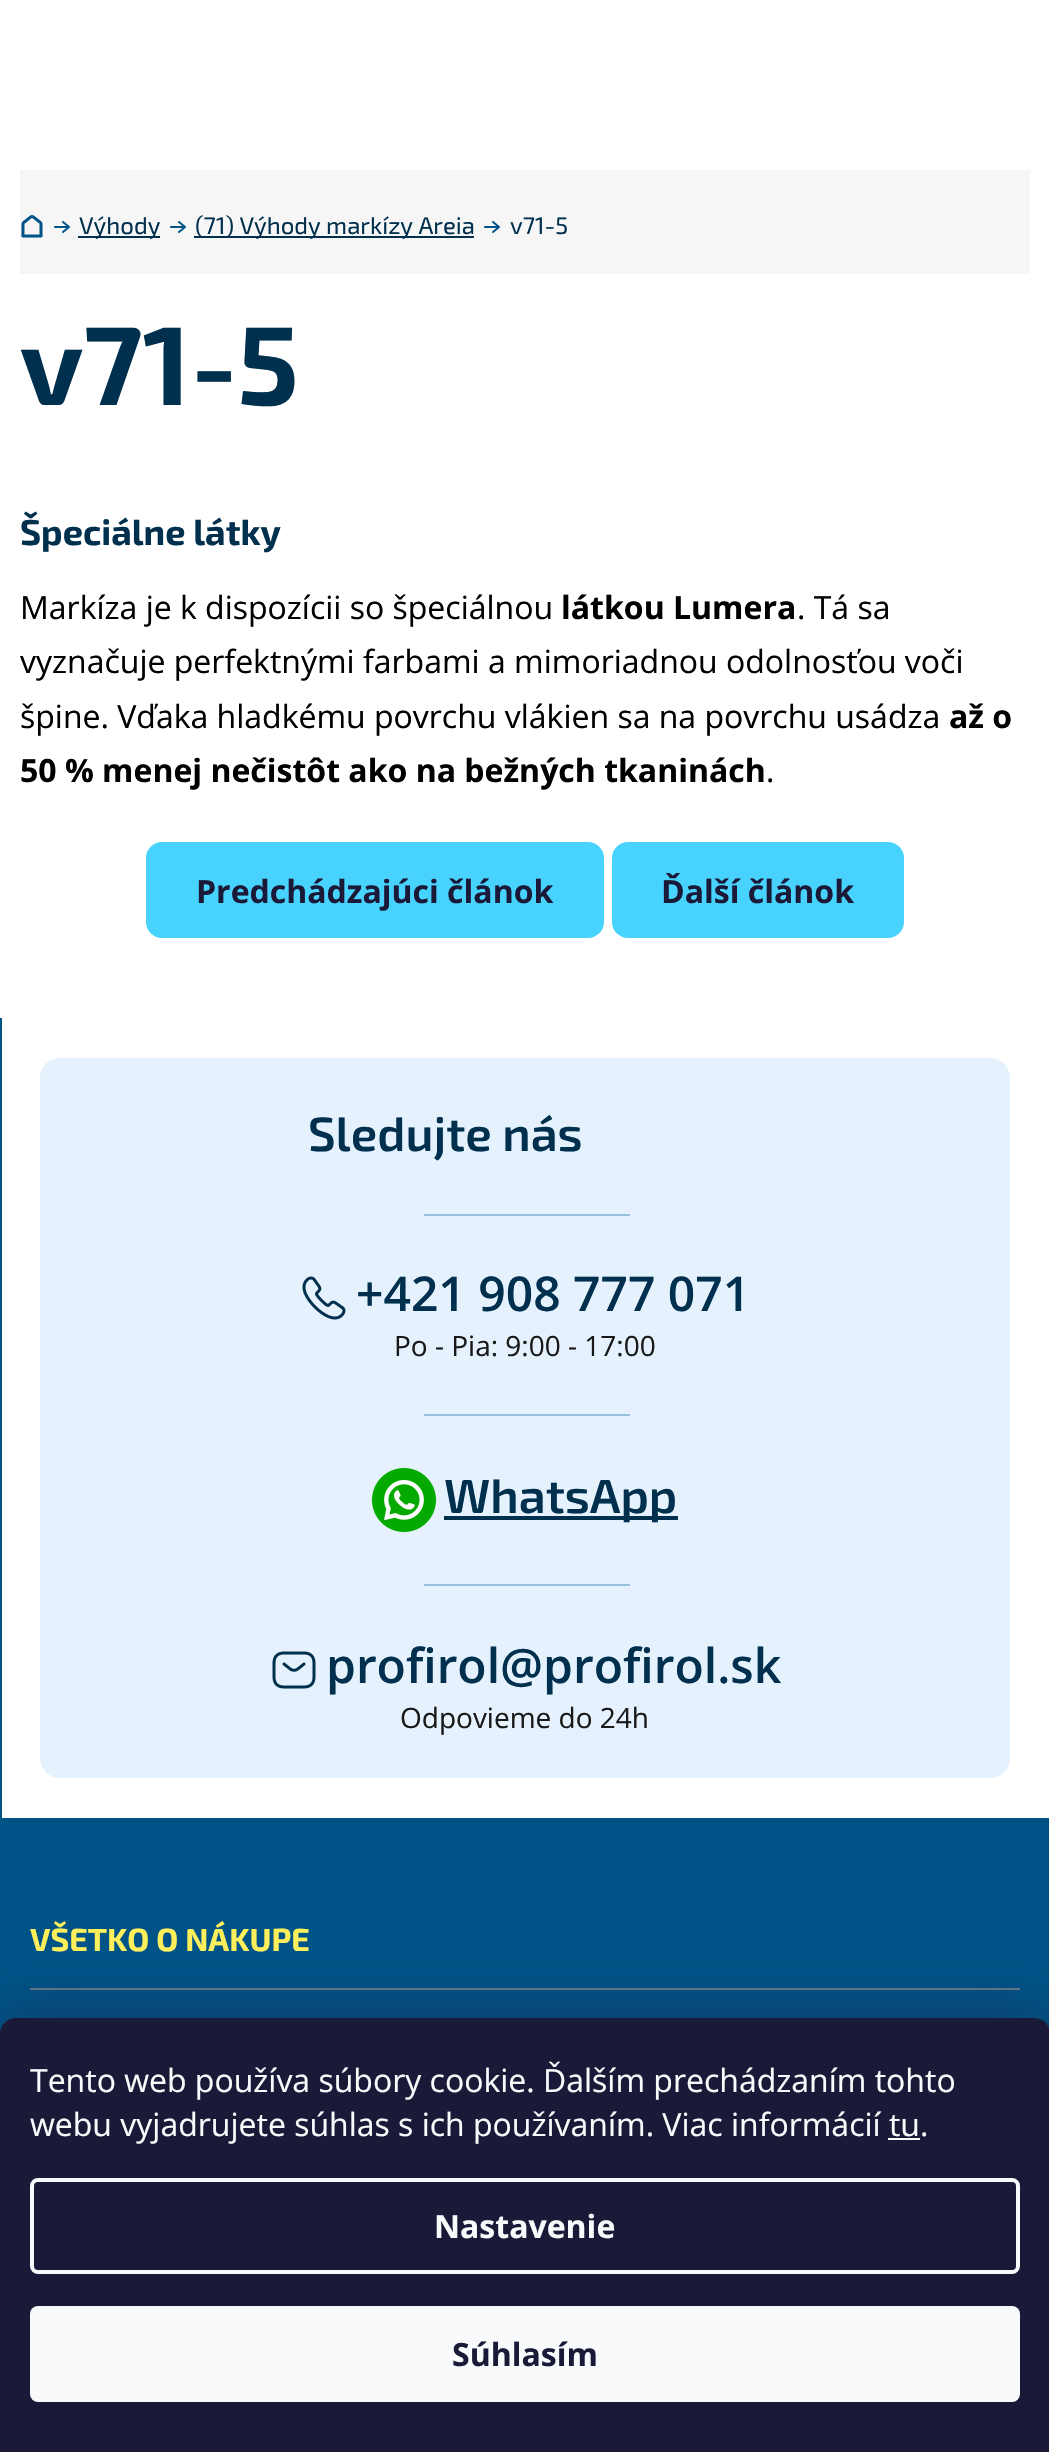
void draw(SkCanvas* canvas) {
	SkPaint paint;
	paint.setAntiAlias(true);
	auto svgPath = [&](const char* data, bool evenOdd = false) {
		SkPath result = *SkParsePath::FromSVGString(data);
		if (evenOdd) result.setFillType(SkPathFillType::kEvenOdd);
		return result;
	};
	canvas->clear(0xffffffff);
	paint.setColor(0xfff6f6f6);
	canvas->drawRect(SkRect::MakeXYWH(20, 170, 1010, 104), paint);
	canvas->drawImageRect(SkImages::DeferredFromEncodedData(SkData::MakeFromFileName("img1.png")), SkRect::MakeXYWH(21, 215, 22, 23), SkSamplingOptions());
	canvas->drawImageRect(SkImages::DeferredFromEncodedData(SkData::MakeFromFileName("img2.png")), SkRect::MakeXYWH(54, 221, 16, 12), SkSamplingOptions());
	paint.setColor(0xff00304e);
	canvas->drawRect(SkRect::MakeXYWH(78, 236, 82, 2), paint);
	SkFont f1(fontMgr->matchFamilyStyle("Exo 2", SkFontStyle::Normal()), 24);
	f1.setSubpixel(true);
	canvas->drawString("Výhody", 79, 234, f1, paint);
	canvas->drawImageRect(SkImages::DeferredFromEncodedData(SkData::MakeFromFileName("img2.png")), SkRect::MakeXYWH(170, 221, 16, 12), SkSamplingOptions());
	canvas->drawRect(SkRect::MakeXYWH(194, 236, 280, 2), paint);
	canvas->drawString("(71) Výhody markízy Areia", 195, 234, f1, paint);
	canvas->drawImageRect(SkImages::DeferredFromEncodedData(SkData::MakeFromFileName("img2.png")), SkRect::MakeXYWH(484, 221, 16, 12), SkSamplingOptions());
	canvas->drawString("v71-5", 510, 234, f1, paint);
	SkFont f2(fontMgr->matchFamilyStyle("Exo 2", SkFontStyle::Bold()), 112);
	f2.setSubpixel(true);
	canvas->drawString("v71-5", 20, 405, f2, paint);
	SkFont f3(fontMgr->matchFamilyStyle("Exo 2", SkFontStyle::Bold()), 36);
	f3.setSubpixel(true);
	canvas->drawString("Špeciálne látky", 20, 545, f3, paint);
	SkFont f4(fontMgr->matchFamilyStyle("Open Sans", SkFontStyle::Normal()), 32);
	f4.setSubpixel(true);
	paint.setColor(0xff000000);
	canvas->drawString("Markíza je k dispozícii so špeciálnou", 20, 619, f4, paint);
	SkFont f5(fontMgr->matchFamilyStyle("Open Sans", SkFontStyle::Bold()), 32);
	f5.setSubpixel(true);
	canvas->drawString("látkou Lumera", 561, 619, f5, paint);
	canvas->drawString(". Tá sa", 797, 619, f4, paint);
	canvas->drawString("vyznačuje perfektnými farbami a mimoriadnou odolnosťou voči", 20, 673, f4, paint);
	canvas->drawString("špine. Vďaka hladkému povrchu vlákien sa na povrchu usádza", 20, 728, f4, paint);
	canvas->drawString("až o", 949, 728, f5, paint);
	canvas->drawString("50 % menej nečistôt ako na bežných tkaninách", 20, 782, f5, paint);
	canvas->drawString(".", 766, 782, f4, paint);
	paint.setColor(0xff48d3ff);
	canvas->drawRoundRect(SkRect::MakeXYWH(147, 843, 456, 94), 15, 15, paint);
	paint.setStroke(true);
	paint.setStrokeWidth(2);
	canvas->drawRoundRect(SkRect::MakeXYWH(147, 843, 456, 94), 15, 15, paint);
	paint.setStroke(false);
	paint.setColor(0xff1a1937);
	canvas->drawString("Predchádzajúci článok", 196, 903, f5, paint);
	paint.setColor(0xff48d3ff);
	canvas->drawRoundRect(SkRect::MakeXYWH(613, 843, 290, 94), 15, 15, paint);
	paint.setStroke(true);
	canvas->drawRoundRect(SkRect::MakeXYWH(613, 843, 290, 94), 15, 15, paint);
	paint.setStroke(false);
	paint.setColor(0xff1a1937);
	canvas->drawString("Ďalší článok", 661, 903, f5, paint);
	paint.setColor(0xff005387);
	canvas->drawRect(SkRect::MakeXYWH(0, 1018, 1049, 1016), paint);
	paint.setColor(0xffffffff);
	canvas->drawRect(SkRect::MakeXYWH(2, 1018, 1047, 800), paint);
	paint.setColor(0xffe5f2fe);
	canvas->drawRoundRect(SkRect::MakeXYWH(40, 1058, 970, 720), 20, 20, paint);
	SkFont f6(fontMgr->matchFamilyStyle("Exo 2", SkFontStyle(600, SkFontStyle::kNormal_Width, SkFontStyle::kUpright_Slant)), 48);
	f6.setSubpixel(true);
	paint.setColor(0xff00304e);
	canvas->drawString("Sledujte nás", 308, 1151, f6, paint);
	paint.setColor(0xff97bfdc);
	canvas->drawRect(SkRect::MakeXYWH(424, 1214, 206, 2), paint);
	canvas->drawImageRect(SkImages::DeferredFromEncodedData(SkData::MakeFromFileName("img3.png")), SkRect::MakeXYWH(302, 1276, 44, 44), SkSamplingOptions());
	SkFont f7(fontMgr->matchFamilyStyle("Open Sans", SkFontStyle(600, SkFontStyle::kNormal_Width, SkFontStyle::kUpright_Slant)), 48);
	f7.setSubpixel(true);
	paint.setColor(0xff00304e);
	canvas->drawString("+421 908 777 071", 356, 1311, f7, paint);
	SkFont f8(fontMgr->matchFamilyStyle("Open Sans", SkFontStyle::Normal()), 28);
	f8.setSubpixel(true);
	paint.setColor(0xff191919);
	canvas->drawString("Po - Pia: 9:00 - 17:00", 394, 1356, f8, paint);
	paint.setColor(0xff97bfdc);
	canvas->drawRect(SkRect::MakeXYWH(424, 1414, 206, 2), paint);
	canvas->drawImageRect(SkImages::DeferredFromEncodedData(SkData::MakeFromFileName("img4.png")), SkRect::MakeXYWH(372, 1468, 64, 64), SkSamplingOptions());
	paint.setColor(0xff00304e);
	canvas->drawRect(SkRect::MakeXYWH(444, 1516, 234, 4), paint);
	canvas->drawString("WhatsApp", 444, 1513, f6, paint);
	paint.setColor(0xff97bfdc);
	canvas->drawRect(SkRect::MakeXYWH(424, 1584, 206, 2), paint);
	canvas->drawImageRect(SkImages::DeferredFromEncodedData(SkData::MakeFromFileName("img5.png")), SkRect::MakeXYWH(272, 1651, 44, 38), SkSamplingOptions());
	paint.setColor(0xff00304e);
	canvas->drawString("profirol@profirol.sk", 326, 1683, f7, paint);
	paint.setColor(0xff191919);
	canvas->drawString("Odpovieme do 24h", 400, 1728, f8, paint);
	paint.setColor(0xff647788);
	canvas->drawRect(SkRect::MakeXYWH(30, 1988, 990, 2), paint);
	SkFont f9(fontMgr->matchFamilyStyle("Exo 2", SkFontStyle::Bold()), 32);
	f9.setSubpixel(true);
	paint.setColor(0xffffef5b);
	canvas->drawString("VŠETKO O NÁKUPE", 30, 1951, f9, paint);
	paint.setColor(0x801b1939);
	paint.setMaskFilter(SkMaskFilter::MakeBlur(kNormal_SkBlurStyle, 30));
	canvas->drawRoundRect(SkRect::MakeXYWH(0, 2018, 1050, 434), 16, 16, paint);
	paint.setMaskFilter(nullptr);
	paint.setColor(0xff1a1937);
	canvas->drawPath(svgPath("M16 2018H1034C1043 2018 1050 2025 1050 2034V2452H0V2034C0 2025 7 2018 16 2018Z"), paint);
	paint.setColor(0xfff8fafb);
	canvas->drawString("Tento web používa súbory cookie. Ďalším prechádzaním tohto", 30, 2092, f4, paint);
	canvas->drawString("webu vyjadrujete súhlas s ich používaním. Viac informácií tu.", 30, 2136, f4, paint);
	canvas->drawRect(SkRect::MakeXYWH(888, 2138, 32, 2), paint);
	paint.setStroke(true);
	paint.setStrokeWidth(4);
	canvas->drawRoundRect(SkRect::MakeXYWH(32, 2180, 986, 92), 6, 6, paint);
	paint.setStroke(false);
	canvas->drawString("Nastavenie", 434, 2238, f5, paint);
	canvas->drawRoundRect(SkRect::MakeXYWH(30, 2306, 990, 96), 8, 8, paint);
	paint.setColor(0xff1a1937);
	canvas->drawString("Súhlasím", 452, 2366, f5, paint);
}
